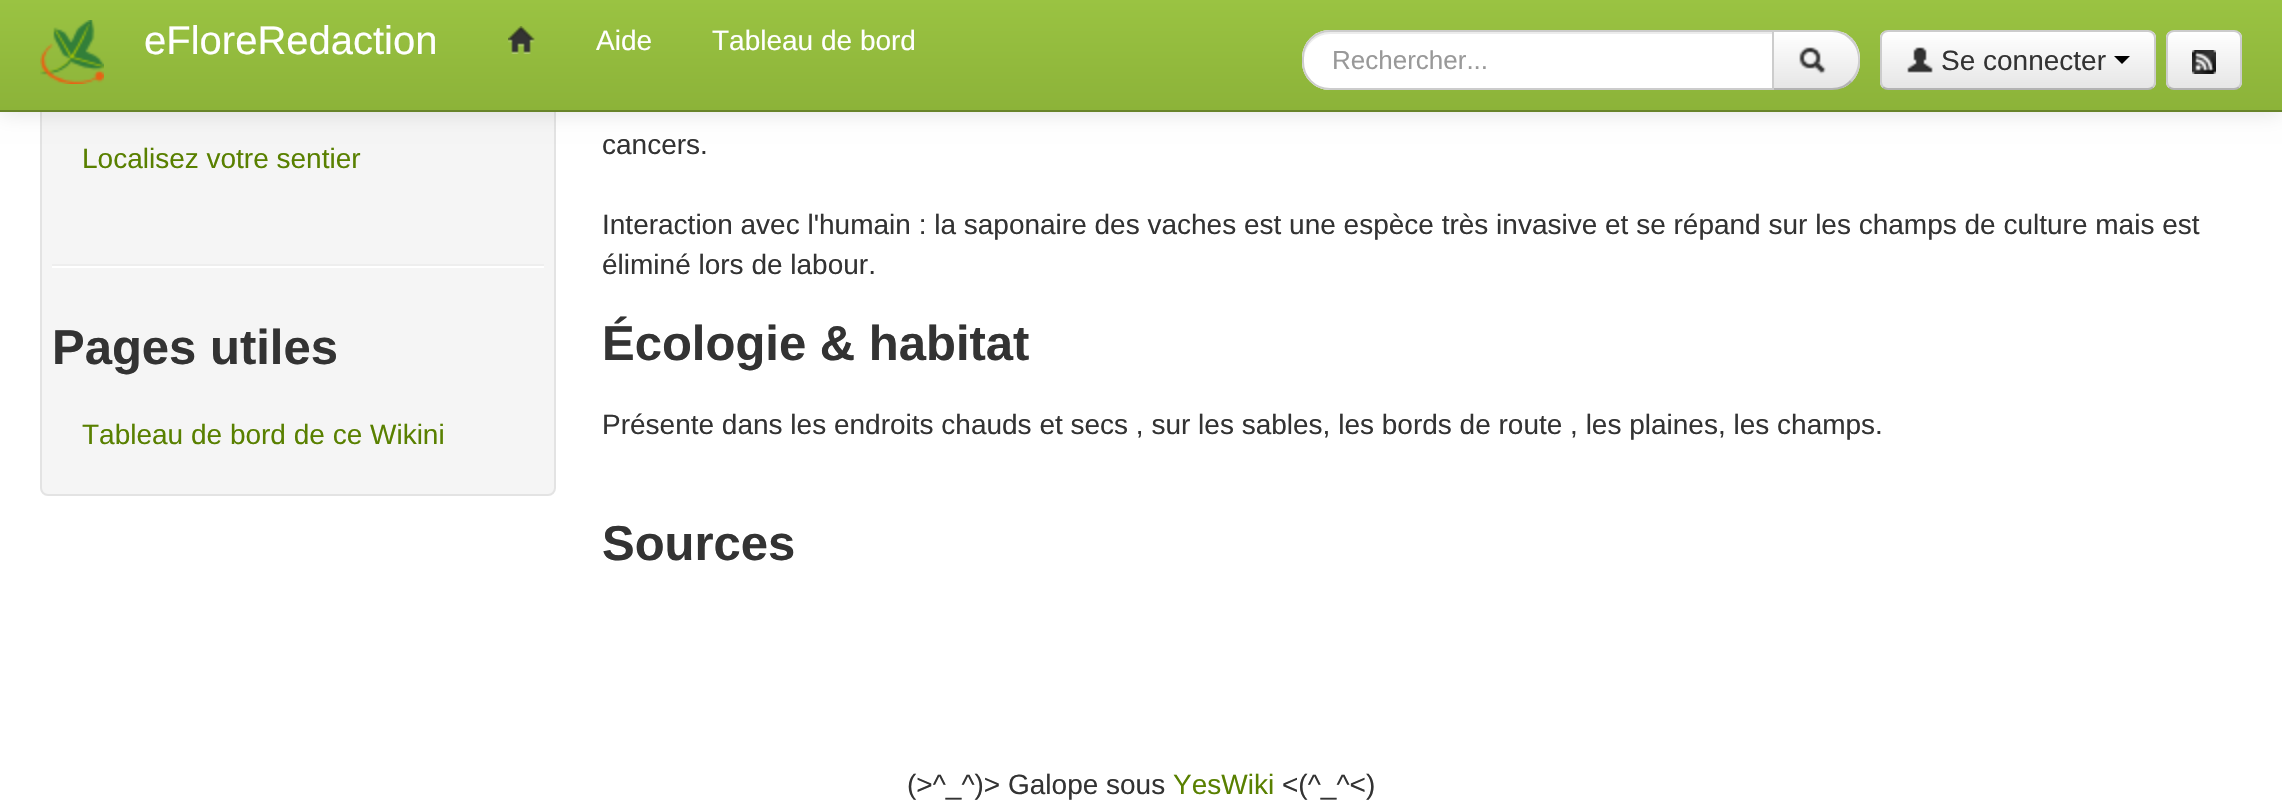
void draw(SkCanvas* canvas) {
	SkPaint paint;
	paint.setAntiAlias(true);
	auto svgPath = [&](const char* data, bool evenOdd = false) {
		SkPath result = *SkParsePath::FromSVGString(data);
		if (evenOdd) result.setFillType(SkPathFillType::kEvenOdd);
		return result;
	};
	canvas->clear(0xffffffff);
	paint.setColor(0xfff5f5f5);
	canvas->drawRoundRect(SkRect::MakeXYWH(41, -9, 514, 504), 7, 7, paint);
	paint.setStroke(true);
	paint.setStrokeWidth(2);
	paint.setColor(0xffe3e3e3);
	canvas->drawRoundRect(SkRect::MakeXYWH(41, -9, 514, 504), 7, 7, paint);
	paint.setStroke(false);
	paint.setColor(0x1a000000);
	paint.setMaskFilter(SkMaskFilter::MakeBlur(kNormal_SkBlurStyle, 10));
	canvas->drawRect(SkRect::MakeXYWH(0, 2, 2282, 112), paint);
	paint.setMaskFilter(nullptr);
	{
		const SkColor colors[] = {0xff9ac342, 0xff8cb339};
		const float stops[] = {0, 1};
		const SkPoint ends[] = {{1141, 0}, {1141, 110}};
		paint.setShader(SkGradientShader::MakeLinear(ends, colors, stops, 2, SkTileMode::kClamp));
		paint.setAlpha(255);
	}
	canvas->drawRect(SkRect::MakeXYWH(0, 0, 2282, 110), paint);
	paint.setShader(nullptr);
	paint.setColor(0xff68842a);
	canvas->drawRect(SkRect::MakeXYWH(0, 110, 2282, 2), paint);
	canvas->drawImageRect(SkImages::DeferredFromEncodedData(SkData::MakeFromFileName("img1.png")), SkRect::MakeXYWH(40, 20, 64, 64), SkSamplingOptions());
	SkFont f1(fontMgr->matchFamilyStyle("Liberation Sans", SkFontStyle::Normal()), 40);
	f1.setSubpixel(true);
	paint.setColor(0xffffffff);
	canvas->drawString("eFloreRedaction", 144, 54, f1, paint);
	canvas->drawImageRect(SkImages::DeferredFromEncodedData(SkData::MakeFromFileName("img2.png")), SkRect::MakeXYWH(508, 26, 27, 28), SkSamplingOptions());
	SkFont f2(fontMgr->matchFamilyStyle("Liberation Sans", SkFontStyle::Normal()), 28);
	f2.setSubpixel(true);
	canvas->drawString("Aide", 596, 50, f2, paint);
	canvas->drawString("Tableau de bord", 712, 50, f2, paint);
	canvas->save();
	canvas->clipPath(svgPath("M1772 30H1832C1847.5 30 1860 42.5 1860 58V62C1860 77.5 1847.5 90 1832 90H1772Z"), true);
	{
		const SkColor colors[] = {0xffffffff, 0xffe6e6e6};
		const float stops[] = {0, 1};
		const SkPoint ends[] = {{1816, 32}, {1816, 88}};
		paint.setShader(SkGradientShader::MakeLinear(ends, colors, stops, 2, SkTileMode::kClamp));
		paint.setAlpha(255);
	}
	canvas->drawRect(SkRect::MakeXYWH(1774, 32, 86, 56), paint);
	canvas->restore();
	paint.setShader(nullptr);
	paint.setColor(0xffcccccc);
	canvas->drawPath(svgPath("M1772 30L1774 32H1832C1839 32 1846 35 1850 40L1852 38C1846 33 1840 30 1832 30Z"), paint);
	canvas->drawPath(svgPath("M1860 62C1860 53 1858 45 1852 38L1850 40C1861 50 1861 70 1850 80L1852 82C1857 76 1860 70 1860 62Z"), paint);
	paint.setColor(0xffb3b3b3);
	canvas->drawPath(svgPath("M1832 90C1840 90 1846 87 1852 82L1850 80C1846 85 1839 88 1832 88H1774L1772 90Z"), paint);
	paint.setColor(0xffffffff);
	canvas->drawPath(svgPath("M1330 30H1774V90H1330C1314.5 90 1302 77.5 1302 62V58C1302 42.5 1314.5 30 1330 30Z"), paint);
	paint.setColor(0xffececec);
	canvas->drawPath(svgPath("M1330 34H1772V32H1330C1316 32 1304 44 1304 58V60C1304 46 1316 34 1330 34Z"), paint);
	paint.setStroke(true);
	paint.setColor(0xffcccccc);
	canvas->drawPath(svgPath("M1330 31H1773V89H1330C1315 89 1303 77 1303 62V58C1303 43 1315 31 1330 31Z"), paint);
	SkFont f3(fontMgr->matchFamilyStyle("Liberation Sans", SkFontStyle::Normal()), 26);
	f3.setSubpixel(true);
	paint.setStroke(false);
	paint.setColor(0xff999999);
	canvas->drawString("Rechercher...", 1332, 69, f3, paint);
	canvas->drawImageRect(SkImages::DeferredFromEncodedData(SkData::MakeFromFileName("img3.png")), SkRect::MakeXYWH(1799, 47, 27, 27), SkSamplingOptions());
	canvas->save();
	canvas->clipPath(svgPath("M1888 30H2148C2152.5 30 2156 33.5 2156 38V82C2156 86.5 2152.5 90 2148 90H1888C1883.5 90 1880 86.5 1880 82V38C1880 33.5 1883.5 30 1888 30Z"), true);
	{
		const SkColor colors[] = {0xffffffff, 0xffe6e6e6};
		const float stops[] = {0, 1};
		const SkPoint ends[] = {{2018, 32}, {2018, 88}};
		paint.setShader(SkGradientShader::MakeLinear(ends, colors, stops, 2, SkTileMode::kClamp));
		paint.setAlpha(255);
	}
	canvas->drawRect(SkRect::MakeXYWH(1880, 32, 276, 56), paint);
	canvas->restore();
	paint.setStroke(true);
	paint.setShader(nullptr);
	paint.setColor(0xffb3b3b3);
	canvas->drawPath(svgPath("M2153 87C2151.5 88.5 2150 89 2148 89H1888C1886 89 1884.5 88.5 1883 87"), paint);
	paint.setColor(0xffcccccc);
	canvas->drawPath(svgPath("M1883 87C1881.5 85.5 1881 84 1881 82V38C1881 36 1881.5 34.5 1883 33C1884.5 31.5 1886 31 1888 31H2148C2150 31 2151.5 31.5 2153 33C2154.5 34.5 2155 36 2155 38V82C2155 84 2154.5 85.5 2153 87"), paint);
	canvas->drawImageRect(SkImages::DeferredFromEncodedData(SkData::MakeFromFileName("img4.png")), SkRect::MakeXYWH(1907, 47, 26, 27), SkSamplingOptions());
	paint.setStroke(false);
	paint.setColor(0xff333333);
	canvas->drawString("Se connecter", 1941, 70, f2, paint);
	paint.setColor(0xff000000);
	canvas->drawPath(svgPath("M2114 56H2130L2122 64Z"), paint);
	canvas->save();
	canvas->clipPath(svgPath("M2174 30H2234C2238.5 30 2242 33.5 2242 38V82C2242 86.5 2238.5 90 2234 90H2174C2169.5 90 2166 86.5 2166 82V38C2166 33.5 2169.5 30 2174 30Z"), true);
	{
		const SkColor colors[] = {0xffffffff, 0xffe6e6e6};
		const float stops[] = {0, 1};
		const SkPoint ends[] = {{2204, 32}, {2204, 88}};
		paint.setShader(SkGradientShader::MakeLinear(ends, colors, stops, 2, SkTileMode::kClamp));
		paint.setAlpha(255);
	}
	canvas->drawRect(SkRect::MakeXYWH(2166, 32, 76, 56), paint);
	canvas->restore();
	paint.setShader(nullptr);
	paint.setColor(0xffffffff);
	canvas->drawPath(svgPath("M2174 34H2234C2237 34 2240 37 2240 40C2240 30 2232 32 2224 32H2184C2176 32 2168 30 2168 40C2168 37 2171 34 2174 34Z"), paint);
	paint.setStroke(true);
	paint.setColor(0xffb3b3b3);
	canvas->drawPath(svgPath("M2239 87C2237.5 88.5 2236 89 2234 89H2174C2172 89 2170.5 88.5 2169 87"), paint);
	paint.setColor(0xffcccccc);
	canvas->drawPath(svgPath("M2169 87C2167.5 85.5 2167 84 2167 82V38C2167 36 2167.5 34.5 2169 33C2170.5 31.5 2172 31 2174 31H2234C2236 31 2237.5 31.5 2239 33C2240.5 34.5 2241 36 2241 38V82C2241 84 2240.5 85.5 2239 87"), paint);
	canvas->drawImageRect(SkImages::DeferredFromEncodedData(SkData::MakeFromFileName("img5.png")), SkRect::MakeXYWH(2192, 50, 24, 24), SkSamplingOptions());
	paint.setStroke(false);
	paint.setColor(0xff598000);
	canvas->drawString("Localisez votre sentier", 82, 168, f2, paint);
	paint.setColor(0xffeeeeee);
	canvas->drawRect(SkRect::MakeXYWH(52, 264, 492, 2), paint);
	paint.setColor(0xffffffff);
	canvas->drawRect(SkRect::MakeXYWH(52, 266, 492, 2), paint);
	SkFont f4(fontMgr->matchFamilyStyle("Liberation Sans", SkFontStyle::Bold()), 49);
	f4.setSubpixel(true);
	paint.setColor(0xff333333);
	canvas->drawString("Pages utiles", 52, 364, f4, paint);
	paint.setColor(0xff598000);
	canvas->drawString("Tableau de bord de ce Wikini", 82, 444, f2, paint);
	paint.setColor(0xff333333);
	canvas->drawString("cancers.", 602, 154, f2, paint);
	canvas->drawString("Interaction avec l'humain : la saponaire des vaches est une espèce très invasive et se répand sur les champs de culture mais est", 602, 234, f2, paint);
	canvas->drawString("éliminé lors de labour.", 602, 274, f2, paint);
	canvas->drawString("Écologie & habitat", 602, 360, f4, paint);
	canvas->drawString("Présente dans les endroits chauds et secs , sur les sables, les bords de route , les plaines, les champs.", 602, 434, f2, paint);
	canvas->drawString("Sources", 602, 560, f4, paint);
	canvas->drawString("(>^_^)> Galope sous", 907, 794, f2, paint);
	paint.setColor(0xff598000);
	canvas->drawString("YesWiki", 1173, 794, f2, paint);
	paint.setColor(0xff333333);
	canvas->drawString("<(^_^<)", 1282, 794, f2, paint);
}
